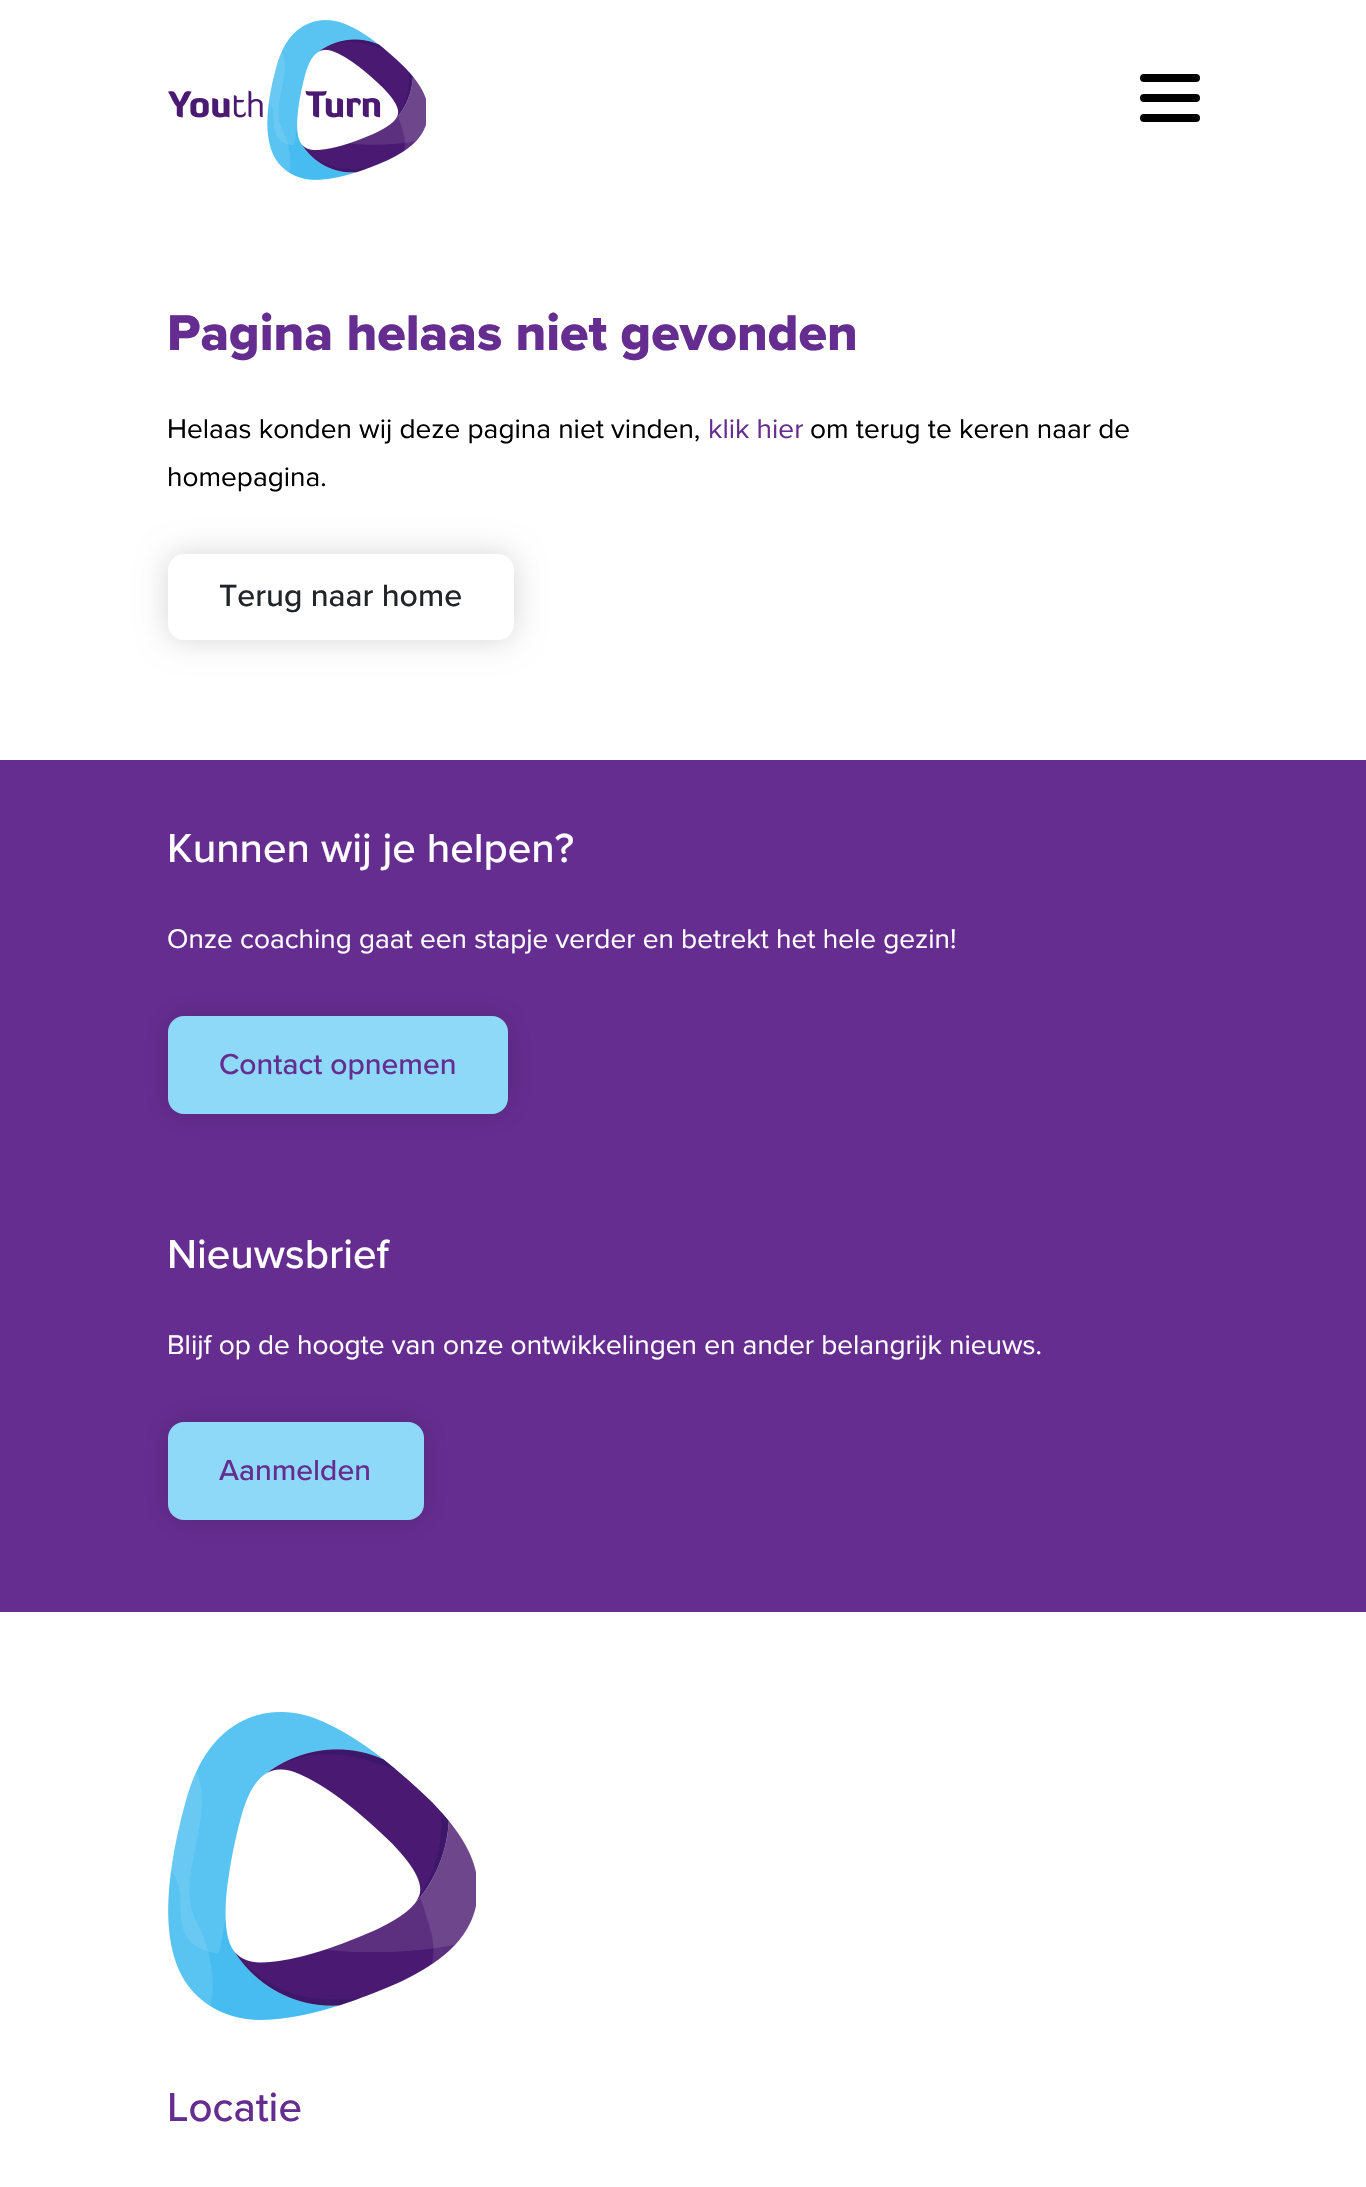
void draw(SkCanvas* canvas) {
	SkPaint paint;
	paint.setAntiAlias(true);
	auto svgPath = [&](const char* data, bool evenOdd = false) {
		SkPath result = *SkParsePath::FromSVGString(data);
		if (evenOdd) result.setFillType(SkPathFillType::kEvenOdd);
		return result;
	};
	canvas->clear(0xffffffff);
	canvas->drawImageRect(SkImages::DeferredFromEncodedData(SkData::MakeFromFileName("img1.png")), SkRect::MakeXYWH(168, 20, 258, 160), SkSamplingOptions());
	paint.setColor(0xff000000);
	canvas->drawRoundRect(SkRect::MakeXYWH(1140, 74, 60, 8), 4, 4, paint);
	canvas->drawRoundRect(SkRect::MakeXYWH(1140, 94, 60, 8), 4, 4, paint);
	canvas->drawRoundRect(SkRect::MakeXYWH(1140, 114, 60, 8), 4, 4, paint);
	SkFont f1(fontMgr->matchFamilyStyle("Proxima Nova", SkFontStyle(800, SkFontStyle::kNormal_Width, SkFontStyle::kUpright_Slant)), 52);
	f1.setSubpixel(true);
	paint.setColor(0xff662d91);
	canvas->drawString("Pagina helaas niet gevonden", 167, 350, f1, paint);
	SkFont f2(fontMgr->matchFamilyStyle("Proxima Nova", SkFontStyle::Normal()), 28);
	f2.setSubpixel(true);
	paint.setColor(0xff000000);
	canvas->drawString("Helaas konden wij deze pagina niet vinden,", 167, 438, f2, paint);
	paint.setColor(0xff662d91);
	canvas->drawString("klik hier", 708, 438, f2, paint);
	paint.setColor(0xff000000);
	canvas->drawString("om terug te keren naar de", 810, 438, f2, paint);
	canvas->drawString("homepagina.", 167, 486, f2, paint);
	canvas->save();
	canvas->clipPath(svgPath("M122 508H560V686H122ZM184 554H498C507 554 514 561 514 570V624C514 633 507 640 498 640H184C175 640 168 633 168 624V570C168 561 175 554 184 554Z", true), true);
	paint.setColor(0x29000000);
	paint.setMaskFilter(SkMaskFilter::MakeBlur(kNormal_SkBlurStyle, 15));
	canvas->drawRoundRect(SkRect::MakeXYWH(168, 554, 346, 86), 16, 16, paint);
	paint.setMaskFilter(nullptr);
	canvas->restore();
	SkFont f3(fontMgr->matchFamilyStyle("Proxima Nova", SkFontStyle(500, SkFontStyle::kNormal_Width, SkFontStyle::kUpright_Slant)), 32);
	f3.setSubpixel(true);
	paint.setColor(0xff212529);
	canvas->drawString("Terug naar home", 219, 606, f3, paint);
	paint.setColor(0xff662d91);
	canvas->drawRect(SkRect::MakeXYWH(0, 760, 1366, 852), paint);
	SkFont f4(fontMgr->matchFamilyStyle("Proxima Nova", SkFontStyle(500, SkFontStyle::kNormal_Width, SkFontStyle::kUpright_Slant)), 42);
	f4.setSubpixel(true);
	paint.setColor(0xffffffff);
	canvas->drawString("Kunnen wij je helpen?", 167, 862, f4, paint);
	canvas->drawString("Onze coaching gaat een stapje verder en betrekt het hele gezin!", 167, 948, f2, paint);
	paint.setColor(0x29000000);
	paint.setMaskFilter(SkMaskFilter::MakeBlur(kNormal_SkBlurStyle, 15));
	canvas->drawRoundRect(SkRect::MakeXYWH(168, 1016, 340, 98), 16, 16, paint);
	paint.setMaskFilter(nullptr);
	paint.setColor(0xff8ed8f8);
	canvas->drawRoundRect(SkRect::MakeXYWH(168, 1016, 340, 98), 16, 16, paint);
	SkFont f5(fontMgr->matchFamilyStyle("Proxima Nova", SkFontStyle(500, SkFontStyle::kNormal_Width, SkFontStyle::kUpright_Slant)), 30);
	f5.setSubpixel(true);
	paint.setColor(0xff662d91);
	canvas->drawString("Contact opnemen", 219, 1074, f5, paint);
	paint.setColor(0xffffffff);
	canvas->drawString("Nieuwsbrief", 167, 1268, f4, paint);
	canvas->drawString("Blijf op de hoogte van onze ontwikkelingen en ander belangrijk nieuws.", 167, 1354, f2, paint);
	paint.setColor(0x29000000);
	paint.setMaskFilter(SkMaskFilter::MakeBlur(kNormal_SkBlurStyle, 15));
	canvas->drawRoundRect(SkRect::MakeXYWH(168, 1422, 256, 98), 16, 16, paint);
	paint.setMaskFilter(nullptr);
	paint.setColor(0xff8ed8f8);
	canvas->drawRoundRect(SkRect::MakeXYWH(168, 1422, 256, 98), 16, 16, paint);
	paint.setColor(0xff662d91);
	canvas->drawString("Aanmelden", 219, 1480, f5, paint);
	canvas->drawImageRect(SkImages::DeferredFromEncodedData(SkData::MakeFromFileName("img2.png")), SkRect::MakeXYWH(168, 1712, 308, 308), SkSamplingOptions());
	canvas->drawString("Locatie", 167, 2121, f4, paint);
}
